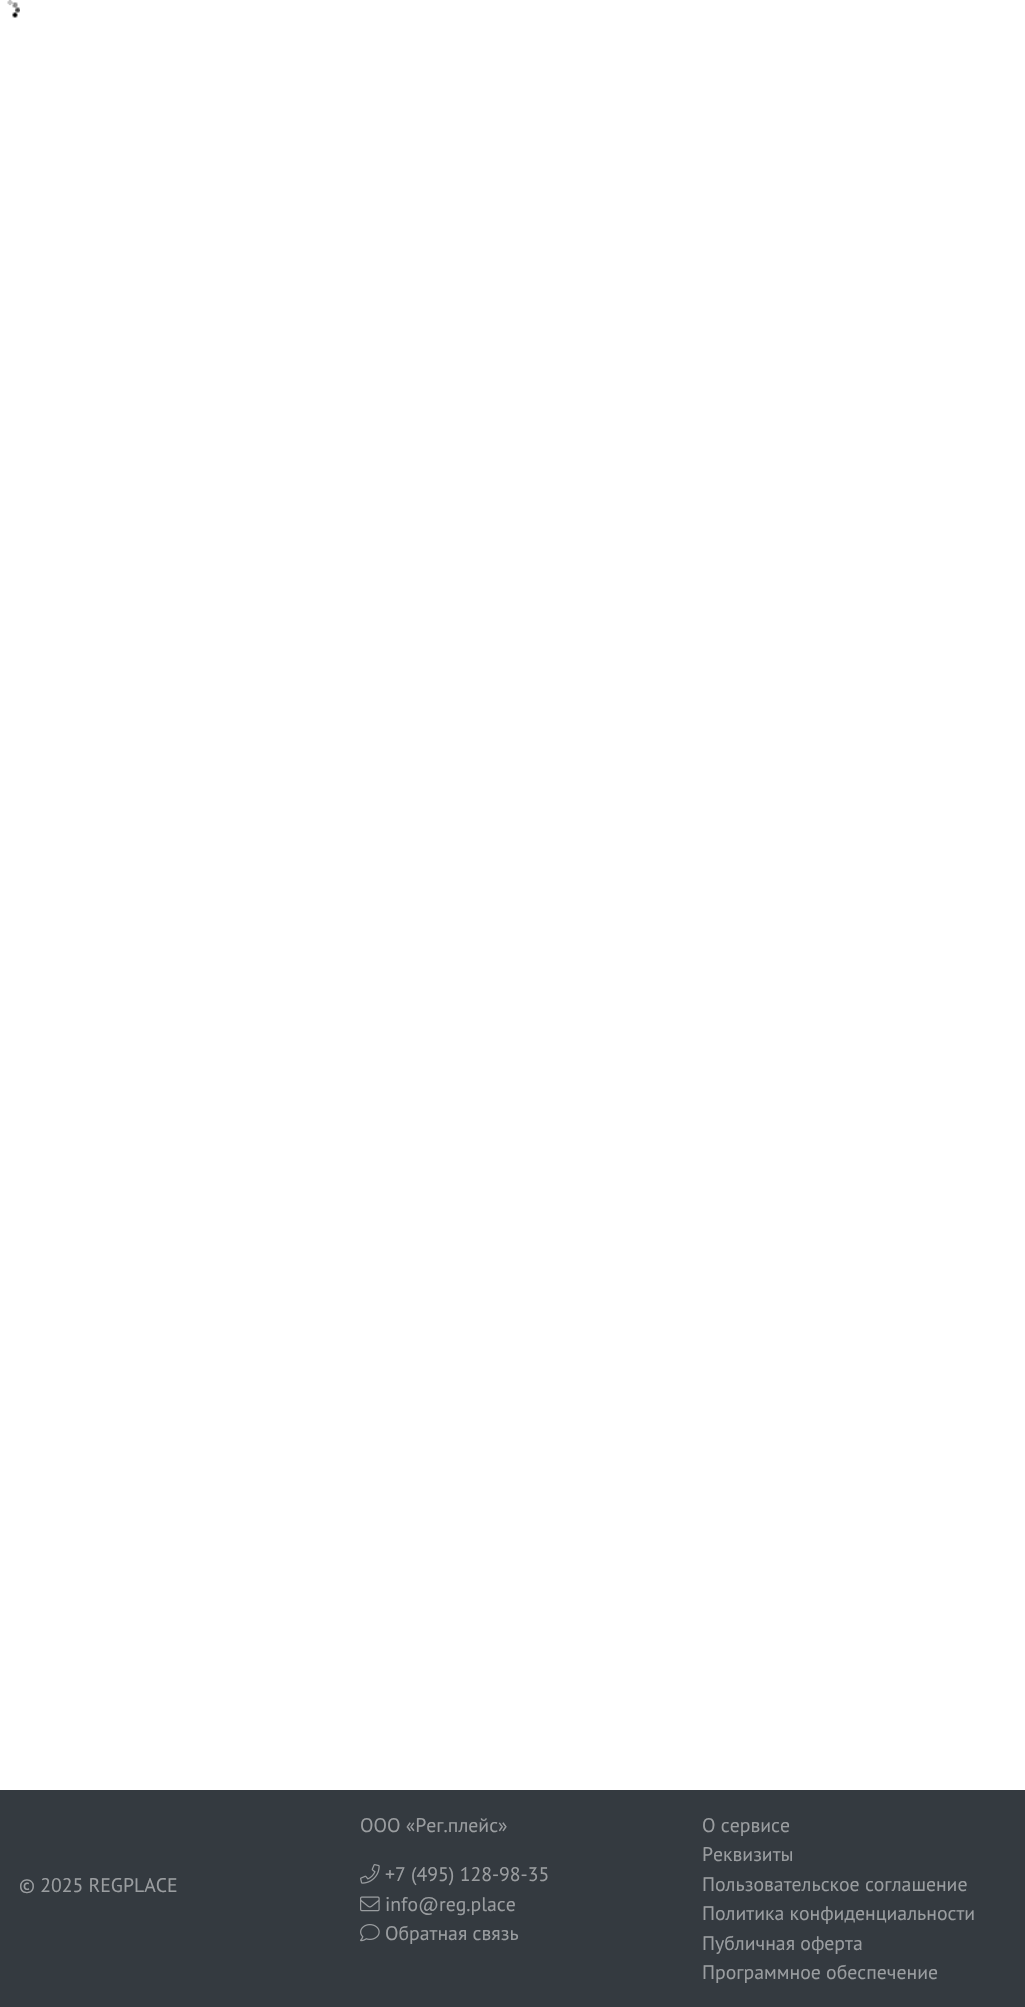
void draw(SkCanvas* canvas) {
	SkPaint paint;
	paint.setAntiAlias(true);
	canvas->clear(0xffffffff);
	canvas->drawImageRect(SkImages::DeferredFromEncodedData(SkData::MakeFromFileName("img1.png")), SkRect::MakeXYWH(7, 0, 13, 18), SkSamplingOptions());
	paint.setColor(0xff343a40);
	canvas->drawRect(SkRect::MakeXYWH(0, 1790, 1025, 217), paint);
	SkFont f1(fontMgr->matchFamilyStyle("PT Sans", SkFontStyle::Normal()), 19.75);
	f1.setSubpixel(true);
	paint.setColor(0xff9a9da0);
	canvas->drawString("© 2025 REGPLACE", 19, 1892, f1, paint);
	canvas->drawString("ООО «Рег.плейс»", 360, 1832, f1, paint);
	canvas->drawImageRect(SkImages::DeferredFromEncodedData(SkData::MakeFromFileName("img2.png")), SkRect::MakeXYWH(360, 1864, 20, 20), SkSamplingOptions());
	canvas->drawString("+7 (495) 128-98-35", 385, 1881, f1, paint);
	canvas->drawImageRect(SkImages::DeferredFromEncodedData(SkData::MakeFromFileName("img3.png")), SkRect::MakeXYWH(360, 1896, 20, 16), SkSamplingOptions());
	canvas->drawString("info@reg.place", 385, 1911, f1, paint);
	canvas->drawImageRect(SkImages::DeferredFromEncodedData(SkData::MakeFromFileName("img4.png")), SkRect::MakeXYWH(360, 1924, 20, 18), SkSamplingOptions());
	canvas->drawString("Обратная связь", 385, 1940, f1, paint);
	canvas->drawString("О сервисе", 702, 1832, f1, paint);
	canvas->drawString("Реквизиты", 702, 1861, f1, paint);
	canvas->drawString("Пользовательское соглашение", 702, 1891, f1, paint);
	canvas->drawString("Политика конфиденциальности", 702, 1920, f1, paint);
	canvas->drawString("Публичная оферта", 702, 1950, f1, paint);
	canvas->drawString("Программное обеспечение", 702, 1979, f1, paint);
}
